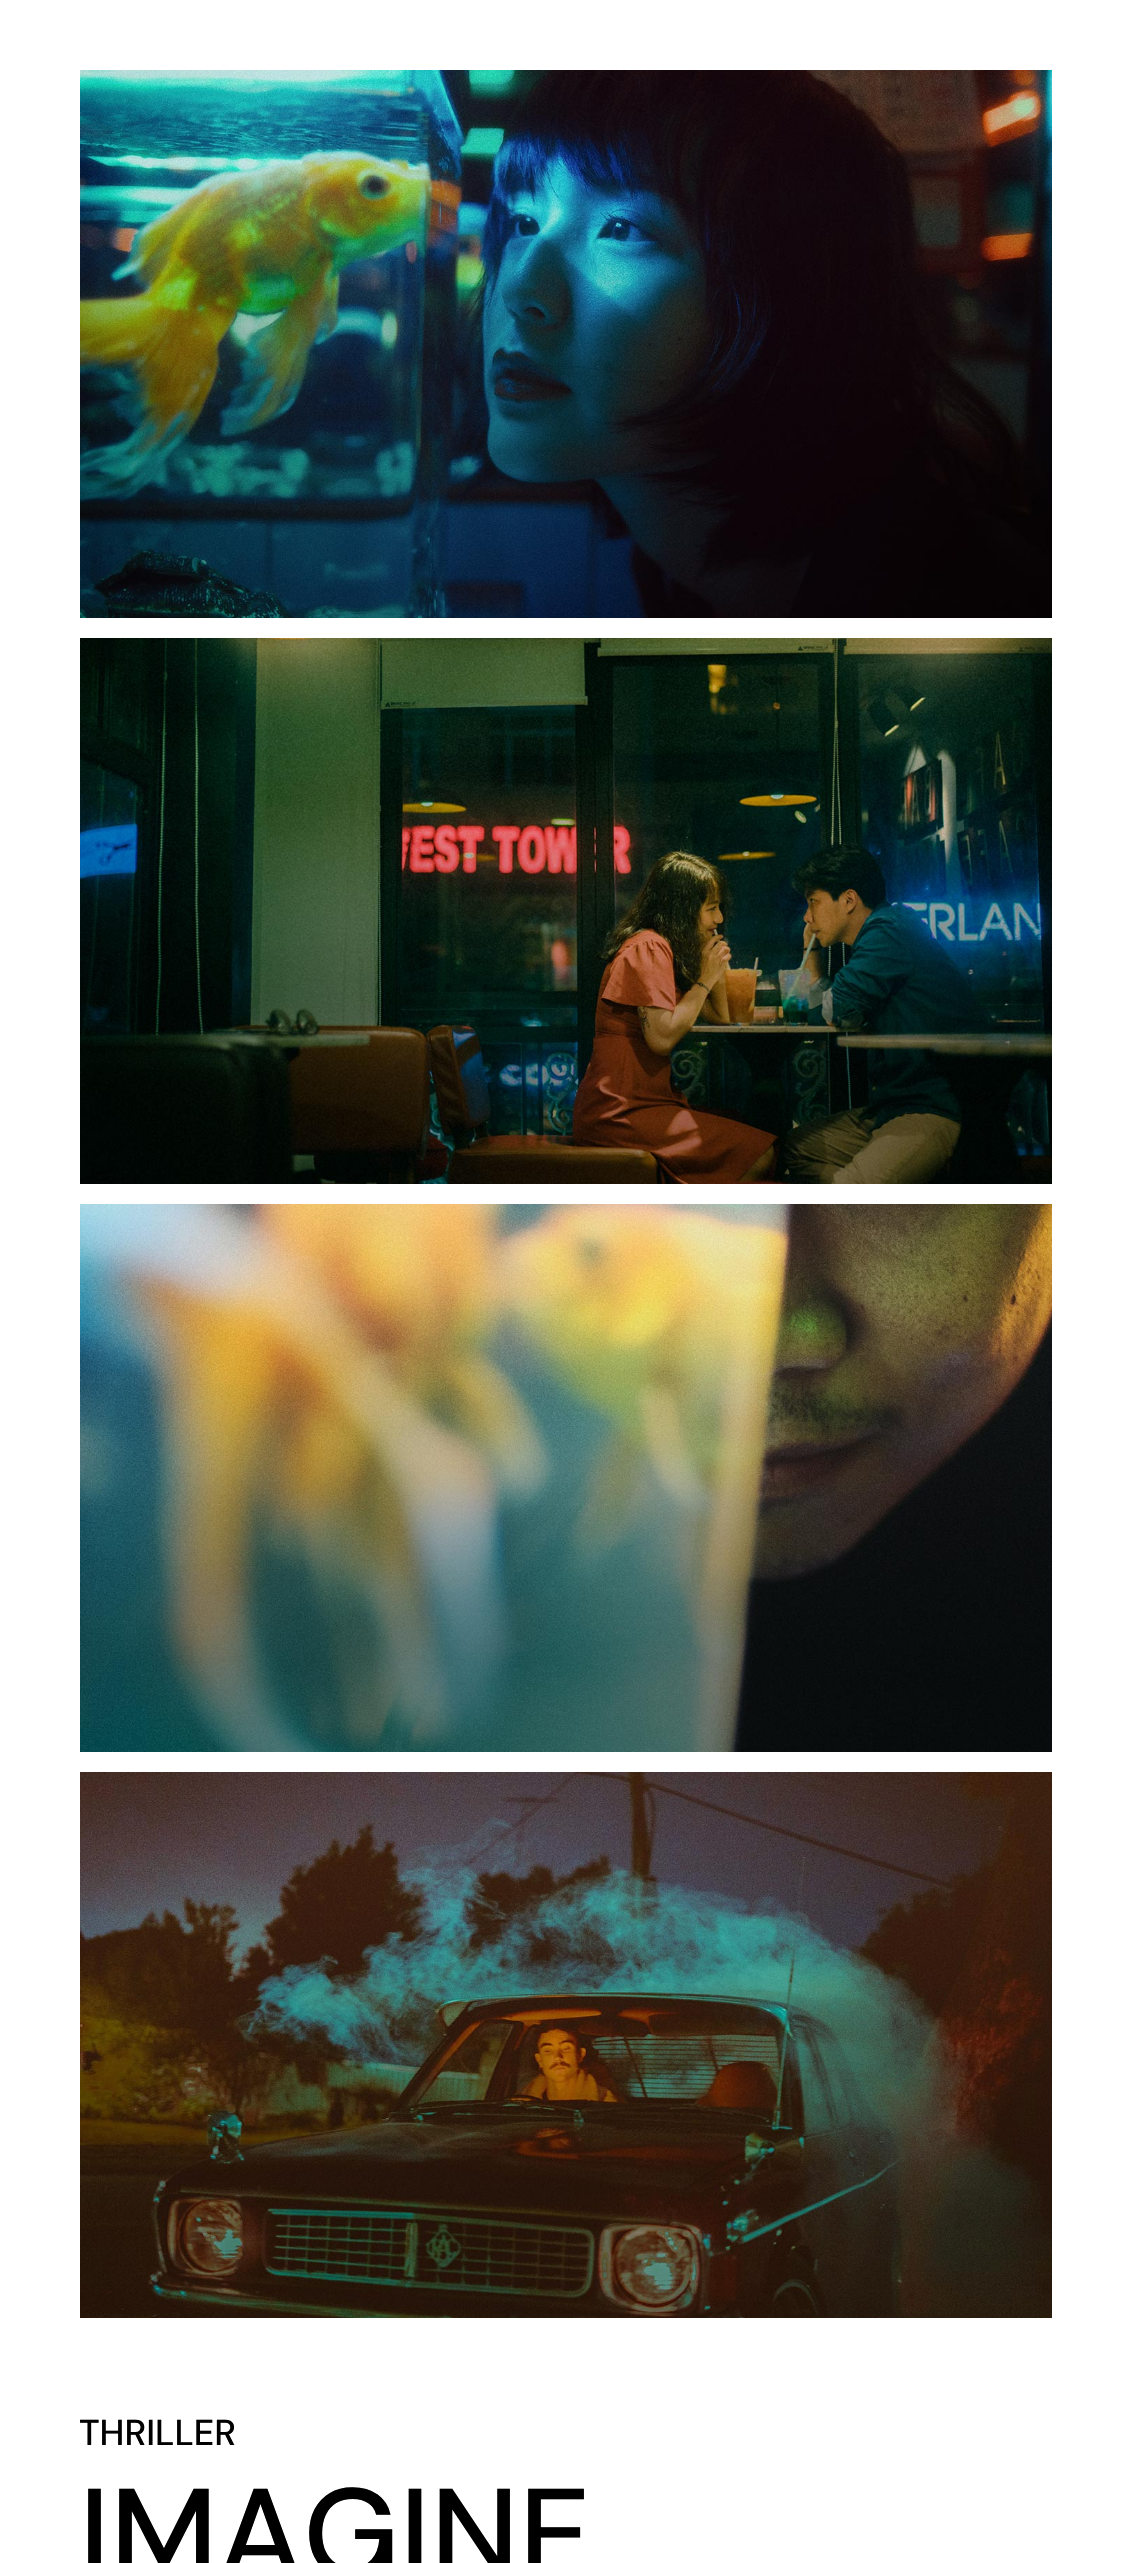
void draw(SkCanvas* canvas) {
	SkPaint paint;
	paint.setAntiAlias(true);
	canvas->clear(0xffffffff);
	canvas->drawImageRect(SkImages::DeferredFromEncodedData(SkData::MakeFromFileName("img1.png")), SkRect::MakeXYWH(80, 70, 972, 548), SkSamplingOptions());
	canvas->drawImageRect(SkImages::DeferredFromEncodedData(SkData::MakeFromFileName("img2.png")), SkRect::MakeXYWH(80, 638, 972, 546), SkSamplingOptions());
	canvas->drawImageRect(SkImages::DeferredFromEncodedData(SkData::MakeFromFileName("img3.png")), SkRect::MakeXYWH(80, 1204, 972, 548), SkSamplingOptions());
	canvas->drawImageRect(SkImages::DeferredFromEncodedData(SkData::MakeFromFileName("img4.png")), SkRect::MakeXYWH(80, 1772, 972, 546), SkSamplingOptions());
	SkFont f1(fontMgr->matchFamilyStyle("DM Sans", SkFontStyle(500, SkFontStyle::kNormal_Width, SkFontStyle::kUpright_Slant)), 36);
	f1.setSubpixel(true);
	paint.setColor(0xff000000);
	canvas->drawString("THRILLER", 79, 2445, f1, paint);
	SkFont f2(fontMgr->matchFamilyStyle("DM Sans", SkFontStyle(500, SkFontStyle::kNormal_Width, SkFontStyle::kUpright_Slant)), 126);
	f2.setSubpixel(true);
	canvas->drawString("IMAGINE", 79, 2577, f2, paint);
}
